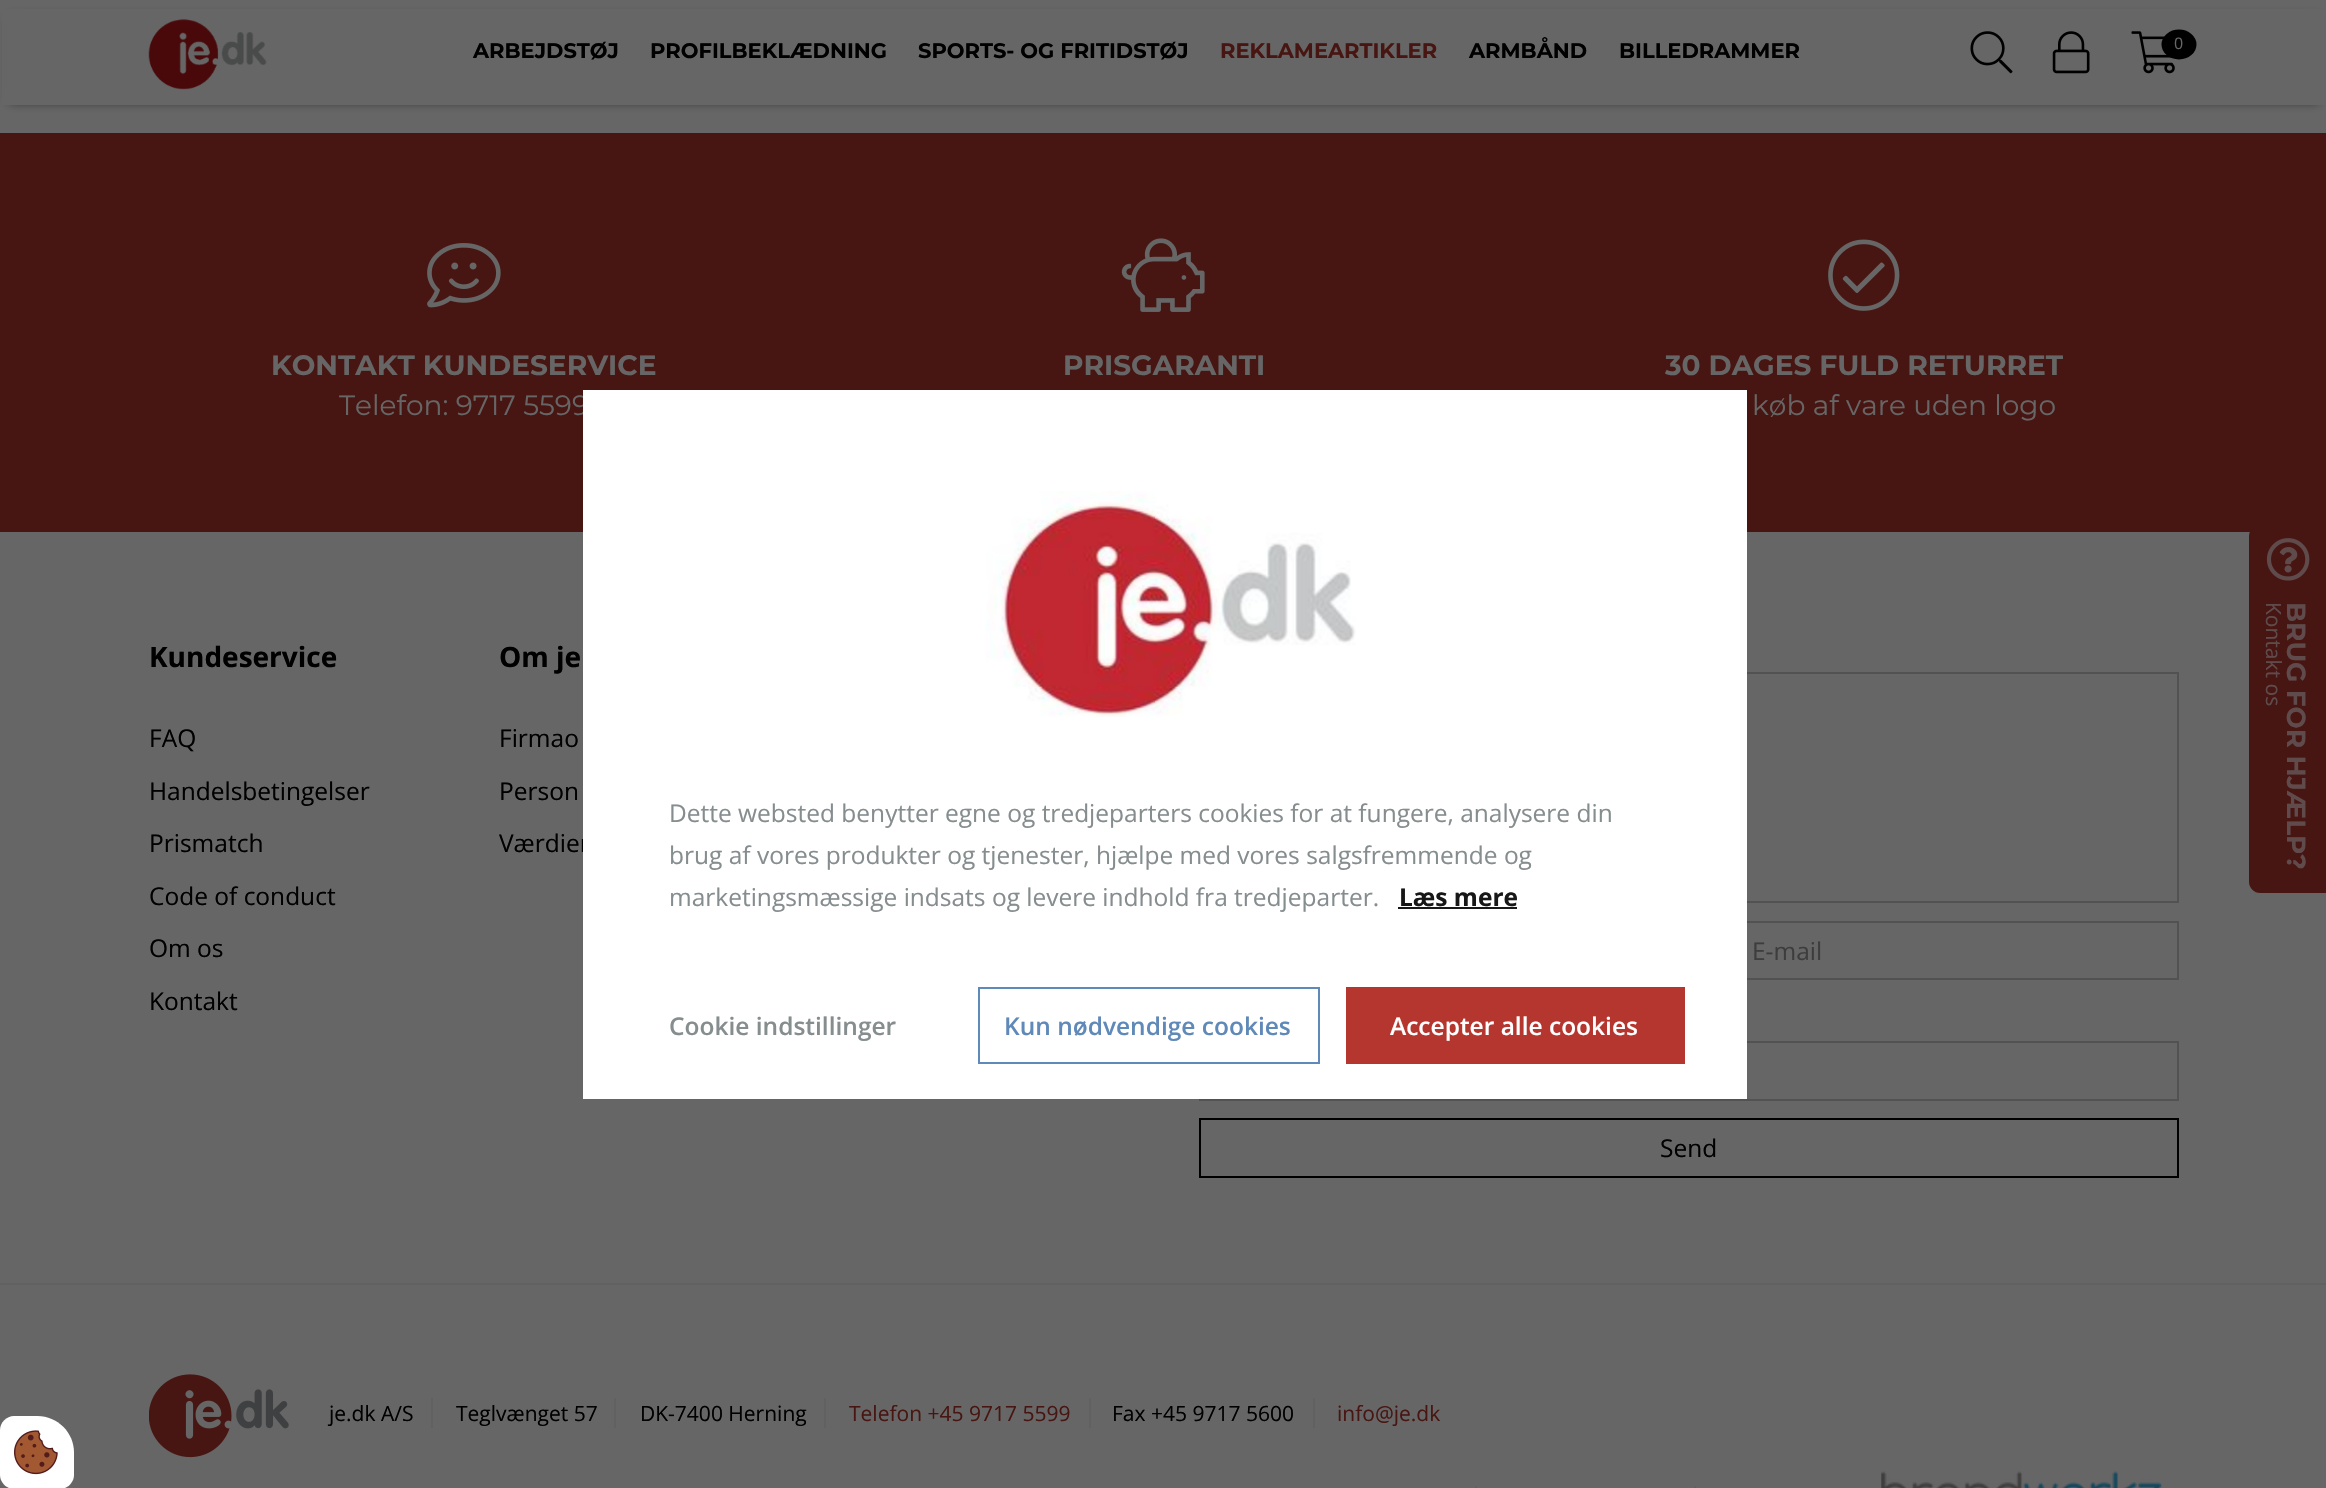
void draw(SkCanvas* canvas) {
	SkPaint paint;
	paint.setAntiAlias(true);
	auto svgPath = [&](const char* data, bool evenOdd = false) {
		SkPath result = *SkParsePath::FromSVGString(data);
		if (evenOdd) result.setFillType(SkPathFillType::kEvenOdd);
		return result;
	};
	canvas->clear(0xff666666);
	paint.setColor(0x80000000);
	paint.setMaskFilter(SkMaskFilter::MakeBlur(kNormal_SkBlurStyle, 4.5));
	canvas->drawRect(SkRect::MakeXYWH(9, 16, 2310, 87), paint);
	paint.setMaskFilter(nullptr);
	paint.setColor(0xff666666);
	canvas->drawRect(SkRect::MakeXYWH(2, 9, 2324, 96), paint);
	canvas->drawImageRect(SkImages::DeferredFromEncodedData(SkData::MakeFromFileName("img1.png")), SkRect::MakeXYWH(148, 19, 119, 71), SkSamplingOptions());
	SkFont f1(fontMgr->matchFamilyStyle("Montserrat", SkFontStyle(100, SkFontStyle::kNormal_Width, SkFontStyle::kUpright_Slant)), 21);
	f1.setSubpixel(true);
	paint.setColor(0xff000000);
	canvas->drawString("ARBEJDSTØJ", 473, 58, f1, paint);
	canvas->drawString("PROFILBEKLÆDNING", 650, 58, f1, paint);
	canvas->drawString("SPORTS- OG FRITIDSTØJ", 918, 58, f1, paint);
	paint.setColor(0xff481612);
	canvas->drawString("REKLAMEARTIKLER", 1220, 58, f1, paint);
	paint.setColor(0xff000000);
	canvas->drawString("ARMBÅND", 1469, 58, f1, paint);
	canvas->drawString("BILLEDRAMMER", 1619, 58, f1, paint);
	canvas->drawImageRect(SkImages::DeferredFromEncodedData(SkData::MakeFromFileName("img2.png")), SkRect::MakeXYWH(1970, 31, 43, 43), SkSamplingOptions());
	canvas->drawImageRect(SkImages::DeferredFromEncodedData(SkData::MakeFromFileName("img3.png")), SkRect::MakeXYWH(2052, 31, 38, 43), SkSamplingOptions());
	canvas->drawImageRect(SkImages::DeferredFromEncodedData(SkData::MakeFromFileName("img4.png")), SkRect::MakeXYWH(2131, 31, 44, 43), SkSamplingOptions());
	canvas->drawOval(SkRect::MakeXYWH(2161.5, 29.5, 35, 30), paint);
	SkFont f2(fontMgr->matchFamilyStyle("Open Sans", SkFontStyle::Normal()), 16);
	f2.setSubpixel(true);
	paint.setColor(0xff666666);
	canvas->drawString("0", 2174, 49, f2, paint);
	paint.setColor(0xff481612);
	canvas->drawRect(SkRect::MakeXYWH(0, 133, 2326, 399), paint);
	canvas->drawImageRect(SkImages::DeferredFromEncodedData(SkData::MakeFromFileName("img5.png")), SkRect::MakeXYWH(427, 243, 74, 65), SkSamplingOptions());
	SkFont f3(fontMgr->matchFamilyStyle("Montserrat", SkFontStyle(100, SkFontStyle::kNormal_Width, SkFontStyle::kUpright_Slant)), 28);
	f3.setSubpixel(true);
	paint.setColor(0xff666666);
	canvas->drawString("KONTAKT KUNDESERVICE", 271, 375, f3, paint);
	SkFont f4(fontMgr->matchFamilyStyle("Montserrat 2", SkFontStyle(100, SkFontStyle::kNormal_Width, SkFontStyle::kUpright_Slant)), 28);
	f4.setSubpixel(true);
	canvas->drawString("Telefon: 9717 5599", 339, 415, f4, paint);
	canvas->drawImageRect(SkImages::DeferredFromEncodedData(SkData::MakeFromFileName("img6.png")), SkRect::MakeXYWH(1121, 238, 84, 74), SkSamplingOptions());
	canvas->drawString("PRISGARANTI", 1063, 375, f3, paint);
	canvas->drawImageRect(SkImages::DeferredFromEncodedData(SkData::MakeFromFileName("img7.png")), SkRect::MakeXYWH(1828, 239, 72, 72), SkSamplingOptions());
	canvas->drawString("30 DAGES FULD RETURRET", 1665, 375, f3, paint);
	canvas->drawString("køb af vare uden logo", 1752, 415, f4, paint);
	SkFont f5(fontMgr->matchFamilyStyle("Open Sans", SkFontStyle::Bold()), 28);
	f5.setSubpixel(true);
	paint.setColor(0xff000000);
	canvas->drawString("Kundeservice", 149, 667, f5, paint);
	SkFont f6(fontMgr->matchFamilyStyle("Open Sans", SkFontStyle::Normal()), 24.5);
	f6.setSubpixel(true);
	canvas->drawString("FAQ", 149, 747, f6, paint);
	canvas->drawString("Handelsbetingelser", 149, 800, f6, paint);
	canvas->drawString("Prismatch", 149, 852, f6, paint);
	canvas->drawString("Code of conduct", 149, 905, f6, paint);
	canvas->drawString("Om os", 149, 957, f6, paint);
	canvas->drawString("Kontakt", 149, 1010, f6, paint);
	canvas->drawString("Om je", 499, 667, f5, paint);
	canvas->drawString("Firmao", 499, 747, f6, paint);
	canvas->drawString("Person", 499, 800, f6, paint);
	canvas->drawString("Værdier", 499, 852, f6, paint);
	paint.setStroke(true);
	paint.setStrokeWidth(2);
	paint.setColor(0xff525252);
	canvas->drawRect(SkRect::MakeXYWH(1200, 673, 978, 229), paint);
	canvas->drawRect(SkRect::MakeXYWH(1725, 922, 453, 57), paint);
	paint.setStroke(false);
	paint.setColor(0xff3d3d3d);
	canvas->drawString("E-mail", 1752, 960, f6, paint);
	paint.setStroke(true);
	paint.setColor(0xff525252);
	canvas->drawRect(SkRect::MakeXYWH(1200, 1042, 978, 58), paint);
	paint.setColor(0xff000000);
	canvas->drawRect(SkRect::MakeXYWH(1200, 1119, 978, 58), paint);
	paint.setStroke(false);
	canvas->drawString("Send", 1660, 1157, f6, paint);
	paint.setColor(0xff616161);
	canvas->drawRect(SkRect::MakeXYWH(0, 1283, 2326, 2), paint);
	canvas->drawImageRect(SkImages::DeferredFromEncodedData(SkData::MakeFromFileName("img8.png")), SkRect::MakeXYWH(149, 1374, 140, 84), SkSamplingOptions());
	canvas->drawRect(SkRect::MakeXYWH(431, 1398, 2, 30), paint);
	SkFont f7(fontMgr->matchFamilyStyle("Open Sans", SkFontStyle::Normal()), 21);
	f7.setSubpixel(true);
	paint.setColor(0xff000000);
	canvas->drawString("je.dk A/S", 329, 1421, f7, paint);
	paint.setColor(0xff616161);
	canvas->drawRect(SkRect::MakeXYWH(614, 1398, 2, 30), paint);
	paint.setColor(0xff000000);
	canvas->drawString("Teglvænget 57", 456, 1421, f7, paint);
	paint.setColor(0xff616161);
	canvas->drawRect(SkRect::MakeXYWH(824, 1398, 2, 30), paint);
	paint.setColor(0xff000000);
	canvas->drawString("DK-7400 Herning", 640, 1421, f7, paint);
	paint.setColor(0xff616161);
	canvas->drawRect(SkRect::MakeXYWH(1089, 1398, 2, 30), paint);
	paint.setColor(0xff481612);
	canvas->drawString("Telefon +45 9717 5599", 849, 1421, f7, paint);
	paint.setColor(0xff616161);
	canvas->drawRect(SkRect::MakeXYWH(1313, 1398, 2, 30), paint);
	paint.setColor(0xff000000);
	canvas->drawString("Fax +45 9717 5600", 1112, 1421, f7, paint);
	paint.setColor(0xff481612);
	canvas->drawString("info@je.dk", 1337, 1421, f7, paint);
	paint.setColor(0xff616161);
	canvas->drawRect(SkRect::MakeXYWH(1475, 1486, 2, 2), paint);
	canvas->drawRect(SkRect::MakeXYWH(1694, 1486, 2, 2), paint);
	canvas->drawImageRect(SkImages::DeferredFromEncodedData(SkData::MakeFromFileName("img9.png")), SkRect::MakeXYWH(1881, 1471, 281, 17), SkSamplingOptions());
	paint.setColor(0xff481612);
	canvas->drawPath(svgPath("M2260 525H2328V893H2260C2254 893 2249 888 2249 882V536C2249 530 2254 525 2260 525Z"), paint);
	canvas->drawImageRect(SkImages::DeferredFromEncodedData(SkData::MakeFromFileName("img10.png")), SkRect::MakeXYWH(2266, 538, 44, 43), SkSamplingOptions());
	paint.setColor(0xff5f4b4c);
	canvas->save();
	canvas->rotate(90, 2266, 602);
	canvas->drawString("Kontakt os", 2266, 602, f7, paint);
	canvas->restore();
	SkFont f8(fontMgr->matchFamilyStyle("Montserrat", SkFontStyle(100, SkFontStyle::kNormal_Width, SkFontStyle::kUpright_Slant)), 26.25);
	f8.setSubpixel(true);
	canvas->save();
	canvas->rotate(90, 2287, 602);
	canvas->drawString("BRUG FOR HJÆLP?", 2287, 602, f8, paint);
	canvas->restore();
	paint.setColor(0xffffffff);
	canvas->drawRect(SkRect::MakeXYWH(583, 390, 1164, 709), paint);
	canvas->drawImageRect(SkImages::DeferredFromEncodedData(SkData::MakeFromFileName("img11.png")), SkRect::MakeXYWH(986, 491, 370, 226), SkSamplingOptions());
	paint.setColor(0xff868d8f);
	canvas->drawString("Dette websted benytter egne og tredjeparters cookies for at fungere, analysere din", 669, 822, f6, paint);
	canvas->drawString("brug af vores produkter og tjenester, hjælpe med vores salgsfremmende og", 669, 864, f6, paint);
	canvas->drawString("marketingsmæssige indsats og levere indhold fra tredjeparter.", 669, 906, f6, paint);
	SkFont f9(fontMgr->matchFamilyStyle("Open Sans", SkFontStyle::Bold()), 24.5);
	f9.setSubpixel(true);
	paint.setColor(0xff171717);
	canvas->drawString("Læs mere", 1399, 906, f9, paint);
	canvas->drawRect(SkRect::MakeXYWH(1398, 907, 119, 2), paint);
	SkFont f10(fontMgr->matchFamilyStyle("Open Sans", SkFontStyle(600, SkFontStyle::kNormal_Width, SkFontStyle::kUpright_Slant)), 24.5);
	f10.setSubpixel(true);
	paint.setColor(0xff868d8f);
	canvas->drawString("Cookie indstillinger", 669, 1035, f10, paint);
	paint.setStroke(true);
	paint.setColor(0xff5f89b8);
	canvas->drawRect(SkRect::MakeXYWH(979, 988, 340, 75), paint);
	paint.setStroke(false);
	canvas->drawString("Kun nødvendige cookies", 1004, 1035, f10, paint);
	paint.setColor(0xffb4362e);
	canvas->drawRect(SkRect::MakeXYWH(1346, 987, 339, 77), paint);
	paint.setColor(0xffffffff);
	canvas->drawString("Accepter alle cookies", 1390, 1035, f10, paint);
	canvas->drawPath(svgPath("M14 1416H37.5C57.5 1416 74 1432.5 74 1452.5V1475C74 1482.5 67.5 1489 60 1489H14C6.5 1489 0 1482.5 0 1475V1430C0 1422.5 6.5 1416 14 1416Z"), paint);
	canvas->drawImageRect(SkImages::DeferredFromEncodedData(SkData::MakeFromFileName("img12.png")), SkRect::MakeXYWH(14, 1430, 44, 45), SkSamplingOptions());
}
